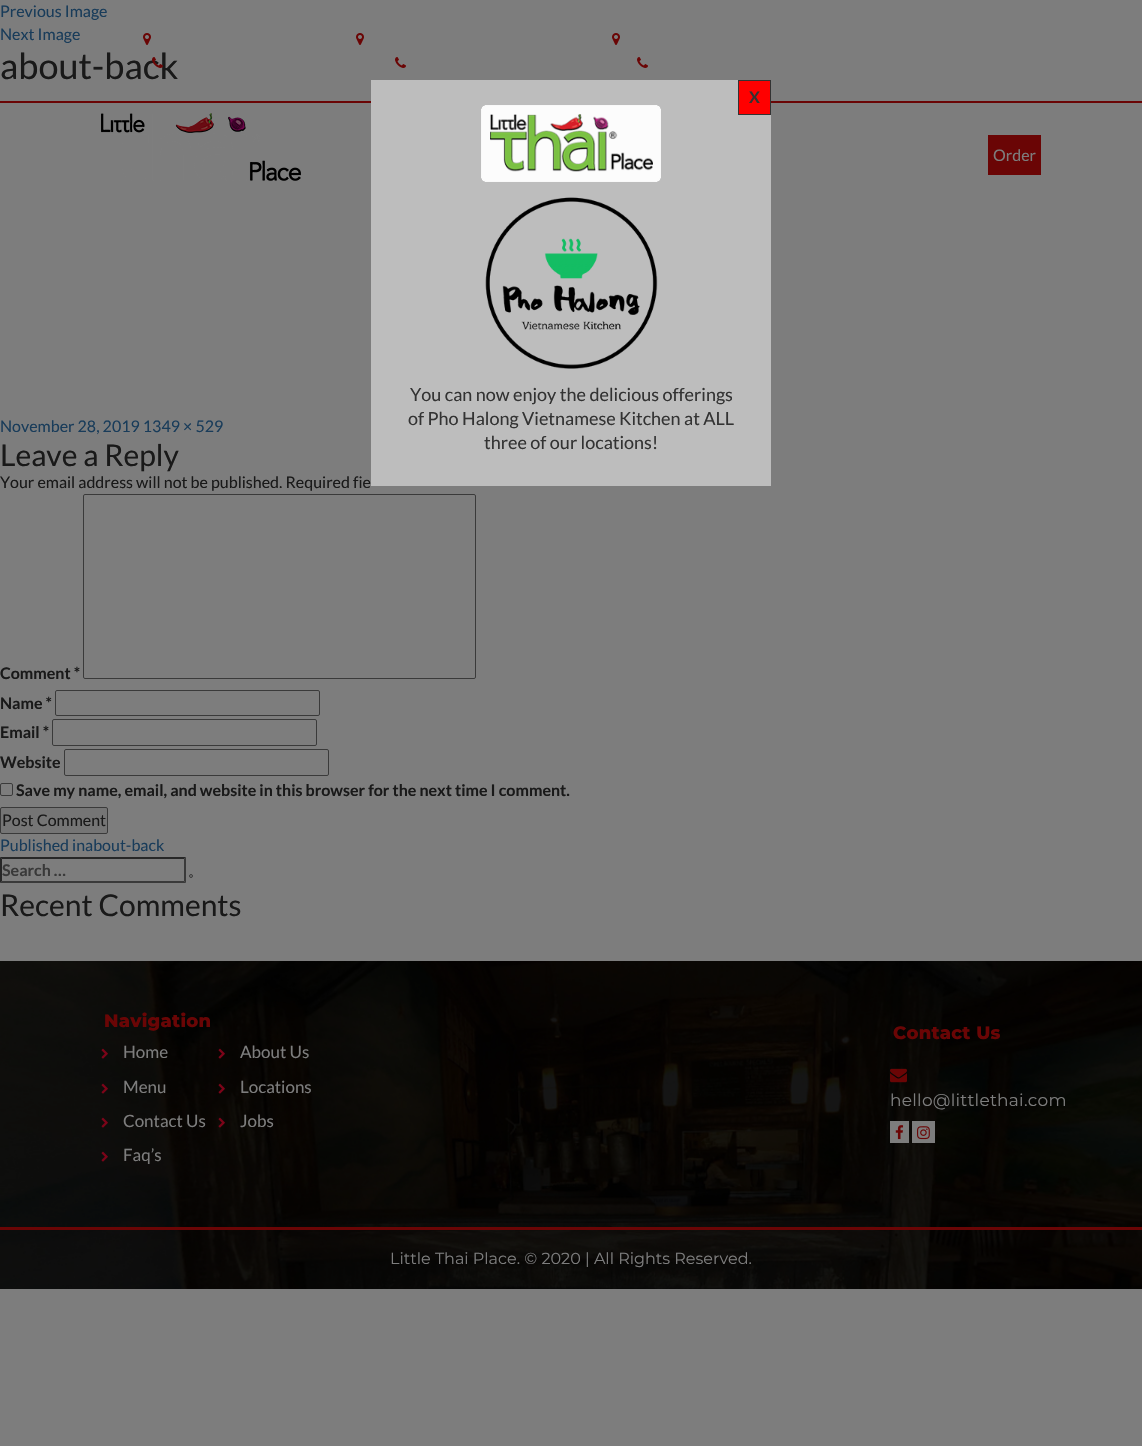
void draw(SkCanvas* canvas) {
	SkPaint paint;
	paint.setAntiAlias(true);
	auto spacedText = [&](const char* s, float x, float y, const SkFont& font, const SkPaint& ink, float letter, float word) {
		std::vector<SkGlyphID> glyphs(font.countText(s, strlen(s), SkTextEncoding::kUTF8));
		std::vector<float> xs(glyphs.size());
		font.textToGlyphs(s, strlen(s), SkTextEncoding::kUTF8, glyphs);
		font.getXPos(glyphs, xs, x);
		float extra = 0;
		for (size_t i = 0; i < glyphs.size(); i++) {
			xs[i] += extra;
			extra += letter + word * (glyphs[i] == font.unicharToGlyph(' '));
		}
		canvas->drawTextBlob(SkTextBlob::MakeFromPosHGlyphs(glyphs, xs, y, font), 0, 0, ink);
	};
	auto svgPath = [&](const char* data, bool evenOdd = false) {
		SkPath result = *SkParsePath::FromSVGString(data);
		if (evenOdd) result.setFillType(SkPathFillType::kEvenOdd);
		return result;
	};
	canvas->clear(0xff7d7d7d);
	SkFont f1(fontMgr->matchFamilyStyle("Lato", SkFontStyle::Normal()), 16);
	f1.setSubpixel(true);
	paint.setColor(0xff193c5a);
	canvas->drawString("Previous Image", 0, 17, f1, paint);
	canvas->drawString("Next Image", 0, 40, f1, paint);
	SkFont f2(fontMgr->matchFamilyStyle("Lato", SkFontStyle::Normal()), 36);
	f2.setSubpixel(true);
	paint.setColor(0xff191919);
	canvas->drawString("about-back", 0, 79, f2, paint);
	paint.setColor(0xff193c5a);
	canvas->drawString("November 28, 2019 1349 × 529", 0, 432, f1, paint);
	SkFont f3(fontMgr->matchFamilyStyle("Lato", SkFontStyle::Normal()), 30);
	f3.setSubpixel(true);
	paint.setColor(0xff191919);
	canvas->drawString("Leave a Reply", 0, 466, f3, paint);
	canvas->drawString("Your email address will not be published. Required fie", 0, 488, f1, paint);
	SkFont f4(fontMgr->matchFamilyStyle("Lato", SkFontStyle::Bold()), 16);
	f4.setSubpixel(true);
	canvas->drawString("Comment *", 0, 679, f4, paint);
	paint.setStroke(true);
	paint.setStrokeWidth(1);
	paint.setColor(0xff3a3a3a);
	canvas->drawRoundRect(SkRect::MakeXYWH(83.5, 494.5, 392, 184), 1.5, 1.5, paint);
	paint.setStroke(false);
	paint.setColor(0xff191919);
	canvas->drawString("Name *", 0, 709, f4, paint);
	paint.setStroke(true);
	paint.setColor(0xff3a3a3a);
	canvas->drawRoundRect(SkRect::MakeXYWH(55.5, 690.5, 264, 25), 1.5, 1.5, paint);
	paint.setStroke(false);
	paint.setColor(0xff191919);
	canvas->drawString("Email *", 0, 738, f4, paint);
	paint.setStroke(true);
	paint.setColor(0xff3a3a3a);
	canvas->drawRoundRect(SkRect::MakeXYWH(52.5, 719.5, 264, 26), 1.5, 1.5, paint);
	paint.setStroke(false);
	paint.setColor(0xff191919);
	canvas->drawString("Website", 0, 768, f4, paint);
	paint.setStroke(true);
	paint.setColor(0xff3a3a3a);
	canvas->drawRoundRect(SkRect::MakeXYWH(64.5, 749.5, 264, 26), 1.5, 1.5, paint);
	canvas->drawRoundRect(SkRect::MakeXYWH(0.5, 783.5, 12, 12), 1.5, 1.5, paint);
	paint.setStroke(false);
	paint.setColor(0xff191919);
	canvas->drawString("Save my name, email, and website in this browser for the next time I comment.", 16, 796, f4, paint);
	paint.setColor(0xff757575);
	canvas->drawRoundRect(SkRect::MakeXYWH(0.5, 807.5, 107, 26), 1.5, 1.5, paint);
	paint.setStroke(true);
	paint.setColor(0xff3a3a3a);
	canvas->drawRoundRect(SkRect::MakeXYWH(0.5, 807.5, 107, 26), 1.5, 1.5, paint);
	paint.setStroke(false);
	paint.setColor(0xff191919);
	canvas->drawString("Post Comment", 2, 826, f1, paint);
	paint.setColor(0xff193c5a);
	canvas->drawString("Published inabout-back", 0, 851, f1, paint);
	paint.setColor(0xff6a0505);
	canvas->drawRect(SkRect::MakeXYWH(0, 101, 1142, 2), paint);
	paint.setColor(0xffbdbdbd);
	canvas->drawRect(SkRect::MakeXYWH(371, 80, 400, 406), paint);
	paint.setColor(0xffff0000);
	canvas->drawRect(SkRect::MakeXYWH(738.5, 80.5, 32, 34), paint);
	paint.setStroke(true);
	paint.setColor(0xff333333);
	canvas->drawRect(SkRect::MakeXYWH(738.5, 80.5, 32, 34), paint);
	paint.setStroke(false);
	canvas->drawString("X", 749, 103, f4, paint);
	canvas->drawImageRect(SkImages::DeferredFromEncodedData(SkData::MakeFromFileName("img1.png")), SkRect::MakeXYWH(481, 105, 180, 77), SkSamplingOptions());
	canvas->drawImageRect(SkImages::DeferredFromEncodedData(SkData::MakeFromFileName("img2.png")), SkRect::MakeXYWH(485, 197, 173, 172), SkSamplingOptions());
	SkFont f5(fontMgr->matchFamilyStyle("Lato", SkFontStyle::Normal()), 18);
	f5.setSubpixel(true);
	canvas->drawString("You can now enjoy the delicious offerings", 410, 401, f5, paint);
	canvas->drawString("of Pho Halong Vietnamese Kitchen at ALL", 408, 425, f5, paint);
	canvas->drawString("three of our locations!", 484, 449, f5, paint);
	paint.setColor(0xff272727);
	canvas->drawPath(svgPath("M0 857H186L184 859H2Z"), paint);
	paint.setColor(0xff3a3a3a);
	canvas->drawPath(svgPath("M186 857V883L184 881V859Z"), paint);
	canvas->drawPath(svgPath("M186 883H0L2 881H184Z"), paint);
	paint.setColor(0xff272727);
	canvas->drawPath(svgPath("M0 883V857L2 859V881Z"), paint);
	paint.setColor(0xff393939);
	canvas->drawString("Search …", 2, 876, f4, paint);
	paint.setColor(0xff757575);
	canvas->drawCircle(191, 876, 1.5, paint);
	paint.setStroke(true);
	paint.setColor(0xff3a3a3a);
	canvas->drawCircle(191, 876, 1.5, paint);
	paint.setStroke(false);
	paint.setColor(0xff191919);
	canvas->drawString("Recent Comments", 0, 916, f3, paint);
	canvas->drawImageRect(SkImages::DeferredFromEncodedData(SkData::MakeFromFileName("img3.png")), SkRect::MakeXYWH(0, 961, 1142, 328), SkSamplingOptions());
	SkFont f6(fontMgr->matchFamilyStyle("Montserrat", SkFontStyle(800, SkFontStyle::kNormal_Width, SkFontStyle::kUpright_Slant)), 18);
	f6.setSubpixel(true);
	paint.setColor(0xff6a0505);
	spacedText("Navigation", 104, 1027, f6, paint, 0.25, 0);
	canvas->drawImageRect(SkImages::DeferredFromEncodedData(SkData::MakeFromFileName("img4.png")), SkRect::MakeXYWH(101, 1048, 7, 11), SkSamplingOptions());
	SkFont f7(fontMgr->matchFamilyStyle("Lato", SkFontStyle::Normal()), 17);
	f7.setSubpixel(true);
	paint.setColor(0xff7d7d7d);
	canvas->drawString("Home", 123, 1058, f7, paint);
	canvas->drawImageRect(SkImages::DeferredFromEncodedData(SkData::MakeFromFileName("img5.png")), SkRect::MakeXYWH(218, 1048, 7, 11), SkSamplingOptions());
	canvas->drawString("About Us", 240, 1058, f7, paint);
	canvas->drawImageRect(SkImages::DeferredFromEncodedData(SkData::MakeFromFileName("img6.png")), SkRect::MakeXYWH(101, 1083, 7, 11), SkSamplingOptions());
	canvas->drawString("Menu", 123, 1093, f7, paint);
	canvas->drawImageRect(SkImages::DeferredFromEncodedData(SkData::MakeFromFileName("img7.png")), SkRect::MakeXYWH(218, 1083, 7, 11), SkSamplingOptions());
	canvas->drawString("Locations", 240, 1093, f7, paint);
	canvas->drawImageRect(SkImages::DeferredFromEncodedData(SkData::MakeFromFileName("img8.png")), SkRect::MakeXYWH(101, 1117, 7, 11), SkSamplingOptions());
	canvas->drawString("Contact Us", 123, 1127, f7, paint);
	canvas->drawImageRect(SkImages::DeferredFromEncodedData(SkData::MakeFromFileName("img9.png")), SkRect::MakeXYWH(218, 1117, 7, 11), SkSamplingOptions());
	canvas->drawString("Jobs", 240, 1127, f7, paint);
	canvas->drawImageRect(SkImages::DeferredFromEncodedData(SkData::MakeFromFileName("img10.png")), SkRect::MakeXYWH(101, 1151, 7, 11), SkSamplingOptions());
	canvas->drawString("Faq’s", 123, 1161, f7, paint);
	paint.setColor(0xff6a0505);
	spacedText("Contact Us", 893, 1039, f6, paint, 0.25, 0);
	canvas->drawImageRect(SkImages::DeferredFromEncodedData(SkData::MakeFromFileName("img11.png")), SkRect::MakeXYWH(890, 1068, 17, 15), SkSamplingOptions());
	SkFont f8(fontMgr->matchFamilyStyle("Montserrat", SkFontStyle::Normal()), 17);
	f8.setSubpixel(true);
	paint.setColor(0xff7d7d7d);
	spacedText("hello@littlethai.com", 890, 1106, f8, paint, 0.25, 0);
	canvas->drawRect(SkRect::MakeXYWH(890, 1121, 19, 22), paint);
	canvas->drawImageRect(SkImages::DeferredFromEncodedData(SkData::MakeFromFileName("img12.png")), SkRect::MakeXYWH(895, 1125, 9, 15), SkSamplingOptions());
	canvas->drawRect(SkRect::MakeXYWH(912, 1121, 23, 22), paint);
	canvas->drawImageRect(SkImages::DeferredFromEncodedData(SkData::MakeFromFileName("img13.png")), SkRect::MakeXYWH(917, 1126, 13, 14), SkSamplingOptions());
	paint.setColor(0xff6a0505);
	canvas->drawRect(SkRect::MakeXYWH(0, 1227, 1142, 3), paint);
	SkFont f9(fontMgr->matchFamilyStyle("Montserrat", SkFontStyle::Normal()), 16);
	f9.setSubpixel(true);
	paint.setColor(0xff7d7d7d);
	canvas->drawString("Little Thai Place. © 2020 | All Rights Reserved.", 390, 1264, f9, paint);
	canvas->drawImageRect(SkImages::DeferredFromEncodedData(SkData::MakeFromFileName("img14.png")), SkRect::MakeXYWH(143, 33, 8, 12), SkSamplingOptions());
	canvas->drawImageRect(SkImages::DeferredFromEncodedData(SkData::MakeFromFileName("img15.png")), SkRect::MakeXYWH(152, 57, 11, 11), SkSamplingOptions());
	canvas->drawImageRect(SkImages::DeferredFromEncodedData(SkData::MakeFromFileName("img14.png")), SkRect::MakeXYWH(356, 33, 8, 12), SkSamplingOptions());
	canvas->drawImageRect(SkImages::DeferredFromEncodedData(SkData::MakeFromFileName("img16.png")), SkRect::MakeXYWH(395, 57, 11, 11), SkSamplingOptions());
	canvas->drawImageRect(SkImages::DeferredFromEncodedData(SkData::MakeFromFileName("img14.png")), SkRect::MakeXYWH(612, 33, 8, 12), SkSamplingOptions());
	canvas->drawImageRect(SkImages::DeferredFromEncodedData(SkData::MakeFromFileName("img16.png")), SkRect::MakeXYWH(637, 57, 11, 11), SkSamplingOptions());
	canvas->drawImageRect(SkImages::DeferredFromEncodedData(SkData::MakeFromFileName("img17.png")), SkRect::MakeXYWH(101, 113, 200, 68), SkSamplingOptions());
	paint.setColor(0xff6a0505);
	canvas->drawRect(SkRect::MakeXYWH(988, 135, 53, 40), paint);
	paint.setColor(0xff7d7d7d);
	canvas->drawString("Order", 993, 161, f1, paint);
}
